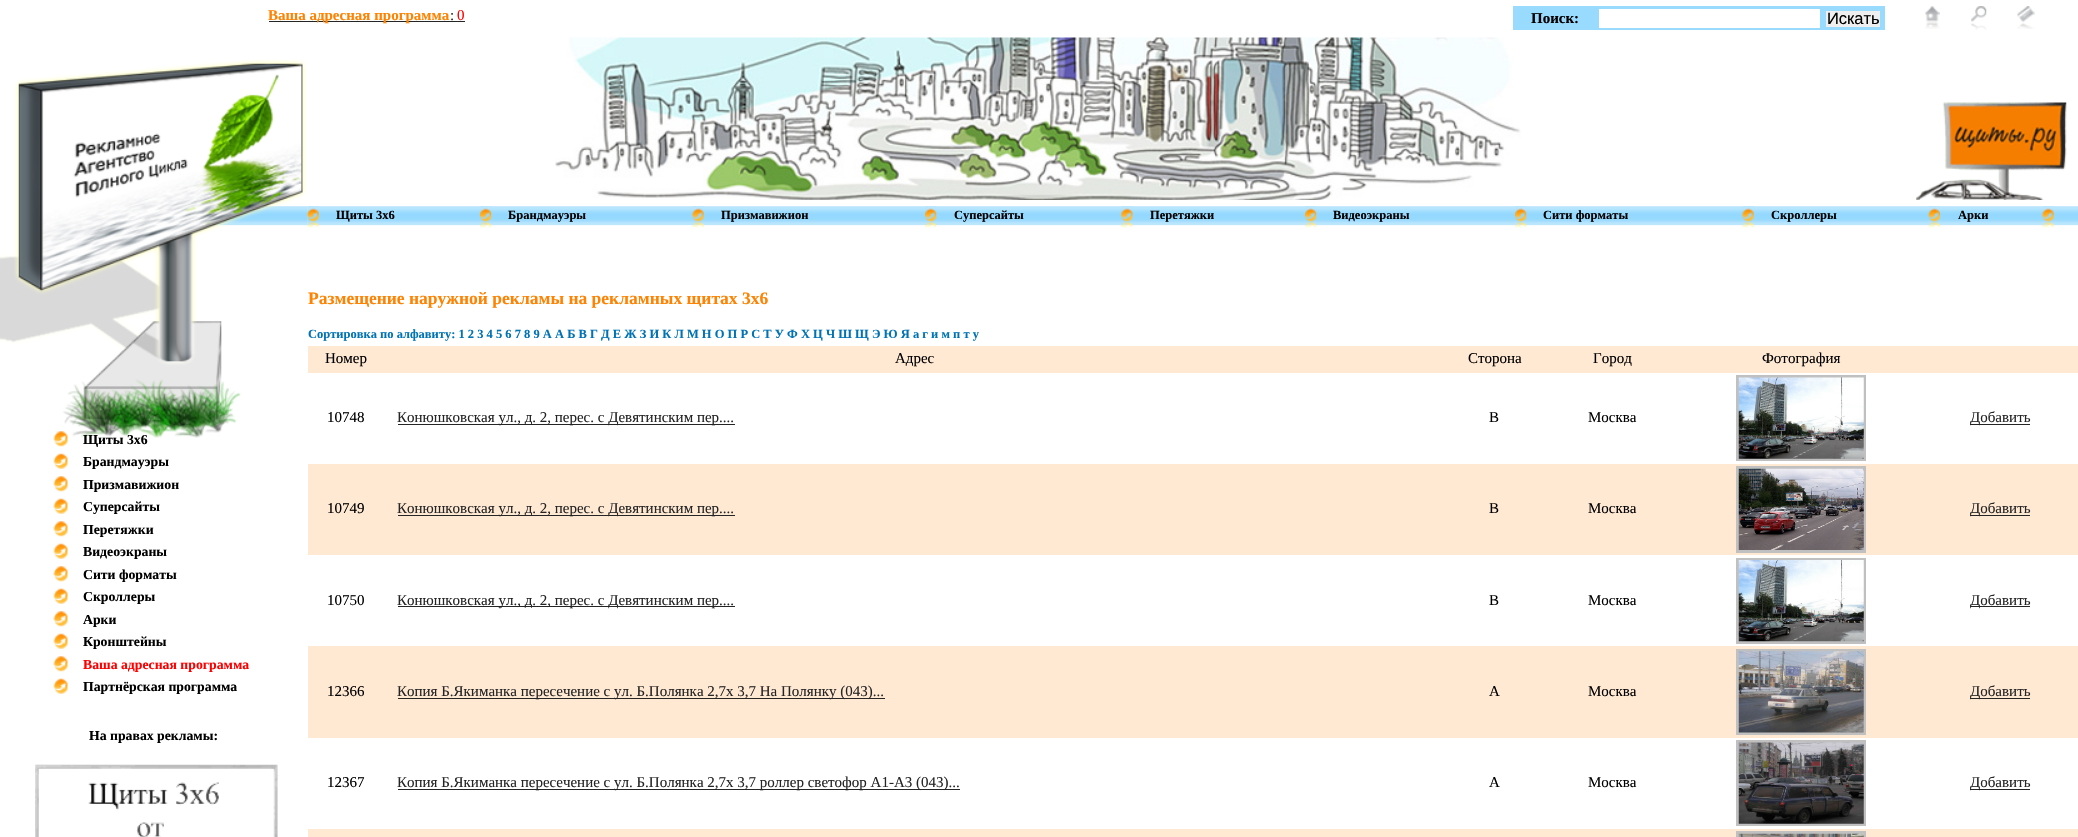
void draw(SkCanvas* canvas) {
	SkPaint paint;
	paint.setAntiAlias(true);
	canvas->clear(0xffffffff);
	paint.setColor(0xff252525);
	canvas->drawRect(SkRect::MakeXYWH(269, 21, 196, 1), paint);
	SkFont f1(fontMgr->matchFamilyStyle("Liberation Serif", SkFontStyle::Bold()), 15);
	f1.setSubpixel(true);
	paint.setColor(0xffff8200);
	canvas->drawString("Ваша адресная программа", 268, 20, f1, paint);
	SkFont f2(fontMgr->matchFamilyStyle("Liberation Serif", SkFontStyle::Normal()), 15);
	f2.setSubpixel(true);
	paint.setColor(0xff252525);
	canvas->drawString(":", 450, 20, f2, paint);
	paint.setColor(0xffff0000);
	canvas->drawString("0", 457, 20, f2, paint);
	paint.setColor(0xff99daff);
	canvas->drawRect(SkRect::MakeXYWH(1513, 6, 372, 24), paint);
	paint.setColor(0xff000000);
	canvas->drawString("Поиск:", 1531, 23, f1, paint);
	paint.setColor(0xffffffff);
	canvas->drawRect(SkRect::MakeXYWH(1599, 9, 221, 19), paint);
	paint.setColor(0xffefefef);
	canvas->drawRect(SkRect::MakeXYWH(1826, 11, 54, 16), paint);
	SkFont f3(fontMgr->matchFamilyStyle("Liberation Sans", SkFontStyle::Normal()), 16.5);
	f3.setSubpixel(true);
	paint.setColor(0xff000000);
	canvas->drawString("Искать", 1827, 24, f3, paint);
	canvas->drawImageRect(SkImages::DeferredFromEncodedData(SkData::MakeFromFileName("img1.png")), SkRect::MakeXYWH(1925, 6, 15, 23), SkSamplingOptions());
	canvas->drawImageRect(SkImages::DeferredFromEncodedData(SkData::MakeFromFileName("img2.png")), SkRect::MakeXYWH(1971, 6, 16, 24), SkSamplingOptions());
	canvas->drawImageRect(SkImages::DeferredFromEncodedData(SkData::MakeFromFileName("img3.png")), SkRect::MakeXYWH(2017, 6, 18, 23), SkSamplingOptions());
	canvas->drawImageRect(SkImages::DeferredFromEncodedData(SkData::MakeFromFileName("img7.png")), SkRect::MakeXYWH(210, 206, 98, 20), SkSamplingOptions());
	canvas->drawImageRect(SkImages::DeferredFromEncodedData(SkData::MakeFromFileName("img16.png")), SkRect::MakeXYWH(53, 431, 15, 16), SkSamplingOptions());
	SkFont f4(fontMgr->matchFamilyStyle("Liberation Serif", SkFontStyle::Bold()), 13.75);
	f4.setSubpixel(true);
	canvas->drawString("Щиты 3x6", 83, 444, f4, paint);
	canvas->drawImageRect(SkImages::DeferredFromEncodedData(SkData::MakeFromFileName("img4.png")), SkRect::MakeXYWH(0, 59, 307, 379), SkSamplingOptions());
	canvas->drawImageRect(SkImages::DeferredFromEncodedData(SkData::MakeFromFileName("img5.png")), SkRect::MakeXYWH(1916, 102, 151, 98), SkSamplingOptions());
	canvas->drawImageRect(SkImages::DeferredFromEncodedData(SkData::MakeFromFileName("img6.png")), SkRect::MakeXYWH(555, 37, 966, 163), SkSamplingOptions());
	canvas->drawImageRect(SkImages::DeferredFromEncodedData(SkData::MakeFromFileName("img8.png")), SkRect::MakeXYWH(307, 206, 1771, 20), SkSamplingOptions());
	canvas->drawImageRect(SkImages::DeferredFromEncodedData(SkData::MakeFromFileName("img9.png")), SkRect::MakeXYWH(307, 206, 12, 22), SkSamplingOptions());
	SkFont f5(fontMgr->matchFamilyStyle("Liberation Serif", SkFontStyle::Bold()), 12.5);
	f5.setSubpixel(true);
	canvas->drawString("Щиты 3x6", 336, 219, f5, paint);
	canvas->drawImageRect(SkImages::DeferredFromEncodedData(SkData::MakeFromFileName("img10.png")), SkRect::MakeXYWH(480, 206, 12, 22), SkSamplingOptions());
	canvas->drawString("Брандмауэры", 508, 219, f5, paint);
	canvas->drawImageRect(SkImages::DeferredFromEncodedData(SkData::MakeFromFileName("img11.png")), SkRect::MakeXYWH(692, 206, 12, 22), SkSamplingOptions());
	canvas->drawString("Призмавижион", 721, 219, f5, paint);
	canvas->drawImageRect(SkImages::DeferredFromEncodedData(SkData::MakeFromFileName("img10.png")), SkRect::MakeXYWH(925, 206, 12, 22), SkSamplingOptions());
	canvas->drawString("Суперсайты", 954, 219, f5, paint);
	canvas->drawImageRect(SkImages::DeferredFromEncodedData(SkData::MakeFromFileName("img12.png")), SkRect::MakeXYWH(1121, 206, 12, 22), SkSamplingOptions());
	canvas->drawString("Перетяжки", 1150, 219, f5, paint);
	canvas->drawImageRect(SkImages::DeferredFromEncodedData(SkData::MakeFromFileName("img10.png")), SkRect::MakeXYWH(1305, 206, 12, 22), SkSamplingOptions());
	canvas->drawString("Видеоэкраны", 1333, 219, f5, paint);
	canvas->drawImageRect(SkImages::DeferredFromEncodedData(SkData::MakeFromFileName("img13.png")), SkRect::MakeXYWH(1515, 206, 12, 22), SkSamplingOptions());
	canvas->drawString("Сити форматы", 1543, 219, f5, paint);
	canvas->drawImageRect(SkImages::DeferredFromEncodedData(SkData::MakeFromFileName("img11.png")), SkRect::MakeXYWH(1742, 206, 12, 22), SkSamplingOptions());
	canvas->drawString("Скроллеры", 1771, 219, f5, paint);
	canvas->drawImageRect(SkImages::DeferredFromEncodedData(SkData::MakeFromFileName("img14.png")), SkRect::MakeXYWH(1928, 206, 12, 22), SkSamplingOptions());
	canvas->drawString("Арки", 1958, 219, f5, paint);
	canvas->drawImageRect(SkImages::DeferredFromEncodedData(SkData::MakeFromFileName("img15.png")), SkRect::MakeXYWH(2042, 206, 12, 22), SkSamplingOptions());
	canvas->drawImageRect(SkImages::DeferredFromEncodedData(SkData::MakeFromFileName("img17.png")), SkRect::MakeXYWH(53, 453, 15, 16), SkSamplingOptions());
	canvas->drawString("Брандмауэры", 83, 466, f4, paint);
	canvas->drawImageRect(SkImages::DeferredFromEncodedData(SkData::MakeFromFileName("img16.png")), SkRect::MakeXYWH(53, 476, 15, 16), SkSamplingOptions());
	canvas->drawString("Призмавижион", 83, 489, f4, paint);
	canvas->drawImageRect(SkImages::DeferredFromEncodedData(SkData::MakeFromFileName("img17.png")), SkRect::MakeXYWH(53, 498, 15, 16), SkSamplingOptions());
	canvas->drawString("Суперсайты", 83, 511, f4, paint);
	canvas->drawImageRect(SkImages::DeferredFromEncodedData(SkData::MakeFromFileName("img16.png")), SkRect::MakeXYWH(53, 521, 15, 16), SkSamplingOptions());
	canvas->drawString("Перетяжки", 83, 534, f4, paint);
	canvas->drawImageRect(SkImages::DeferredFromEncodedData(SkData::MakeFromFileName("img17.png")), SkRect::MakeXYWH(53, 543, 15, 16), SkSamplingOptions());
	canvas->drawString("Видеоэкраны", 83, 556, f4, paint);
	canvas->drawImageRect(SkImages::DeferredFromEncodedData(SkData::MakeFromFileName("img16.png")), SkRect::MakeXYWH(53, 566, 15, 16), SkSamplingOptions());
	canvas->drawString("Сити форматы", 83, 579, f4, paint);
	canvas->drawImageRect(SkImages::DeferredFromEncodedData(SkData::MakeFromFileName("img17.png")), SkRect::MakeXYWH(53, 588, 15, 16), SkSamplingOptions());
	canvas->drawString("Скроллеры", 83, 601, f4, paint);
	canvas->drawImageRect(SkImages::DeferredFromEncodedData(SkData::MakeFromFileName("img16.png")), SkRect::MakeXYWH(53, 611, 15, 16), SkSamplingOptions());
	canvas->drawString("Арки", 83, 624, f4, paint);
	canvas->drawImageRect(SkImages::DeferredFromEncodedData(SkData::MakeFromFileName("img17.png")), SkRect::MakeXYWH(53, 633, 15, 16), SkSamplingOptions());
	canvas->drawString("Кронштейны", 83, 646, f4, paint);
	canvas->drawImageRect(SkImages::DeferredFromEncodedData(SkData::MakeFromFileName("img16.png")), SkRect::MakeXYWH(53, 656, 15, 16), SkSamplingOptions());
	paint.setColor(0xffff0000);
	canvas->drawString("Ваша адресная программа", 83, 669, f4, paint);
	canvas->drawImageRect(SkImages::DeferredFromEncodedData(SkData::MakeFromFileName("img17.png")), SkRect::MakeXYWH(53, 678, 15, 16), SkSamplingOptions());
	paint.setColor(0xff000000);
	canvas->drawString("Партнёрская программа", 83, 691, f4, paint);
	canvas->drawString("На правах рекламы:", 89, 740, f4, paint);
	canvas->drawImageRect(SkImages::DeferredFromEncodedData(SkData::MakeFromFileName("img18.png")), SkRect::MakeXYWH(35, 764, 244, 73), SkSamplingOptions());
	SkFont f6(fontMgr->matchFamilyStyle("Liberation Serif", SkFontStyle::Bold()), 17.5);
	f6.setSubpixel(true);
	paint.setColor(0xffff8200);
	canvas->drawString("Размещение наружной рекламы на рекламных щитах 3х6", 308, 304, f6, paint);
	paint.setColor(0xff0073b4);
	canvas->drawString("Сортировка по алфавиту: 1 2 3 4 5 6 7 8 9 A А Б В Г Д Е Ж З И К Л М Н О П Р С Т У Ф Х Ц Ч Ш Щ Э Ю Я а г и м п т у", 308, 338, f5, paint);
	paint.setColor(0xffffe9d3);
	canvas->drawRect(SkRect::MakeXYWH(308, 346, 1770, 27), paint);
	paint.setColor(0xff000000);
	canvas->drawString("Номер", 325, 363, f2, paint);
	canvas->drawString("Адрес", 895, 363, f2, paint);
	canvas->drawString("Сторона", 1468, 363, f2, paint);
	canvas->drawString("Город", 1593, 363, f2, paint);
	canvas->drawString("Фотография", 1762, 363, f2, paint);
	canvas->drawString("10748", 327, 422, f2, paint);
	paint.setColor(0xff252525);
	canvas->drawRect(SkRect::MakeXYWH(398, 424, 337, 1), paint);
	canvas->drawString("Конюшковская ул., д. 2, перес. с Девятинским пер....", 397, 422, f2, paint);
	paint.setColor(0xff000000);
	canvas->drawString("B", 1489, 422, f2, paint);
	canvas->drawString("Москва", 1588, 422, f2, paint);
	paint.setStroke(true);
	paint.setStrokeWidth(3);
	paint.setColor(0xffc0c0c0);
	canvas->drawRect(SkRect::MakeXYWH(1737.5, 376.5, 127, 83), paint);
	canvas->drawImageRect(SkImages::DeferredFromEncodedData(SkData::MakeFromFileName("img19.png")), SkRect::MakeXYWH(1738, 377, 126, 82), SkSamplingOptions());
	paint.setStroke(false);
	paint.setColor(0xff252525);
	canvas->drawRect(SkRect::MakeXYWH(1970, 424, 60, 1), paint);
	canvas->drawString("Добавить", 1970, 422, f2, paint);
	paint.setColor(0xffffe9d3);
	canvas->drawRect(SkRect::MakeXYWH(308, 464, 1770, 91), paint);
	paint.setColor(0xff000000);
	canvas->drawString("10749", 327, 513, f2, paint);
	paint.setColor(0xff252525);
	canvas->drawRect(SkRect::MakeXYWH(398, 515, 337, 1), paint);
	canvas->drawString("Конюшковская ул., д. 2, перес. с Девятинским пер....", 397, 513, f2, paint);
	paint.setColor(0xff000000);
	canvas->drawString("B", 1489, 513, f2, paint);
	canvas->drawString("Москва", 1588, 513, f2, paint);
	paint.setStroke(true);
	paint.setColor(0xffc0c0c0);
	canvas->drawRect(SkRect::MakeXYWH(1737.5, 467.5, 127, 84), paint);
	canvas->drawImageRect(SkImages::DeferredFromEncodedData(SkData::MakeFromFileName("img20.png")), SkRect::MakeXYWH(1738, 468, 126, 82), SkSamplingOptions());
	paint.setStroke(false);
	paint.setColor(0xff252525);
	canvas->drawRect(SkRect::MakeXYWH(1970, 515, 60, 1), paint);
	canvas->drawString("Добавить", 1970, 513, f2, paint);
	paint.setColor(0xff000000);
	canvas->drawString("10750", 327, 605, f2, paint);
	paint.setColor(0xff252525);
	canvas->drawRect(SkRect::MakeXYWH(398, 606, 337, 1), paint);
	canvas->drawString("Конюшковская ул., д. 2, перес. с Девятинским пер....", 397, 605, f2, paint);
	paint.setColor(0xff000000);
	canvas->drawString("B", 1489, 605, f2, paint);
	canvas->drawString("Москва", 1588, 605, f2, paint);
	paint.setStroke(true);
	paint.setColor(0xffc0c0c0);
	canvas->drawRect(SkRect::MakeXYWH(1737.5, 559.5, 127, 83), paint);
	canvas->drawImageRect(SkImages::DeferredFromEncodedData(SkData::MakeFromFileName("img21.png")), SkRect::MakeXYWH(1738, 560, 126, 82), SkSamplingOptions());
	paint.setStroke(false);
	paint.setColor(0xff252525);
	canvas->drawRect(SkRect::MakeXYWH(1970, 606, 60, 1), paint);
	canvas->drawString("Добавить", 1970, 605, f2, paint);
	paint.setColor(0xffffe9d3);
	canvas->drawRect(SkRect::MakeXYWH(308, 646, 1770, 92), paint);
	paint.setColor(0xff000000);
	canvas->drawString("12366", 327, 696, f2, paint);
	paint.setColor(0xff252525);
	canvas->drawRect(SkRect::MakeXYWH(398, 698, 487, 1), paint);
	canvas->drawString("Копия Б.Якиманка пересечение с ул. Б.Полянка 2,7x 3,7 На Полянку (043)...", 397, 696, f2, paint);
	paint.setColor(0xff000000);
	canvas->drawString("А", 1489, 696, f2, paint);
	canvas->drawString("Москва", 1588, 696, f2, paint);
	paint.setStroke(true);
	paint.setColor(0xffc0c0c0);
	canvas->drawRect(SkRect::MakeXYWH(1737.5, 650.5, 127, 83), paint);
	canvas->drawImageRect(SkImages::DeferredFromEncodedData(SkData::MakeFromFileName("img22.png")), SkRect::MakeXYWH(1738, 651, 126, 82), SkSamplingOptions());
	paint.setStroke(false);
	paint.setColor(0xff252525);
	canvas->drawRect(SkRect::MakeXYWH(1970, 698, 60, 1), paint);
	canvas->drawString("Добавить", 1970, 696, f2, paint);
	paint.setColor(0xff000000);
	canvas->drawString("12367", 327, 787, f2, paint);
	paint.setColor(0xff252525);
	canvas->drawRect(SkRect::MakeXYWH(398, 789, 562, 1), paint);
	canvas->drawString("Копия Б.Якиманка пересечение с ул. Б.Полянка 2,7x 3,7 роллер светофор А1-А3 (043)...", 397, 787, f2, paint);
	paint.setColor(0xff000000);
	canvas->drawString("А", 1489, 787, f2, paint);
	canvas->drawString("Москва", 1588, 787, f2, paint);
	paint.setStroke(true);
	paint.setColor(0xffc0c0c0);
	canvas->drawRect(SkRect::MakeXYWH(1737.5, 741.5, 127, 83), paint);
	canvas->drawImageRect(SkImages::DeferredFromEncodedData(SkData::MakeFromFileName("img23.png")), SkRect::MakeXYWH(1738, 742, 126, 82), SkSamplingOptions());
	paint.setStroke(false);
	paint.setColor(0xff252525);
	canvas->drawRect(SkRect::MakeXYWH(1970, 789, 60, 1), paint);
	canvas->drawString("Добавить", 1970, 787, f2, paint);
	paint.setColor(0xffffe9d3);
	canvas->drawRect(SkRect::MakeXYWH(308, 829, 1770, 8), paint);
	paint.setStroke(true);
	paint.setColor(0xffc0c0c0);
	canvas->drawRect(SkRect::MakeXYWH(1737.5, 832.5, 127, 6), paint);
	canvas->drawImageRect(SkImages::DeferredFromEncodedData(SkData::MakeFromFileName("img24.png")), SkRect::MakeXYWH(1738, 833, 126, 4), SkSamplingOptions());
}
